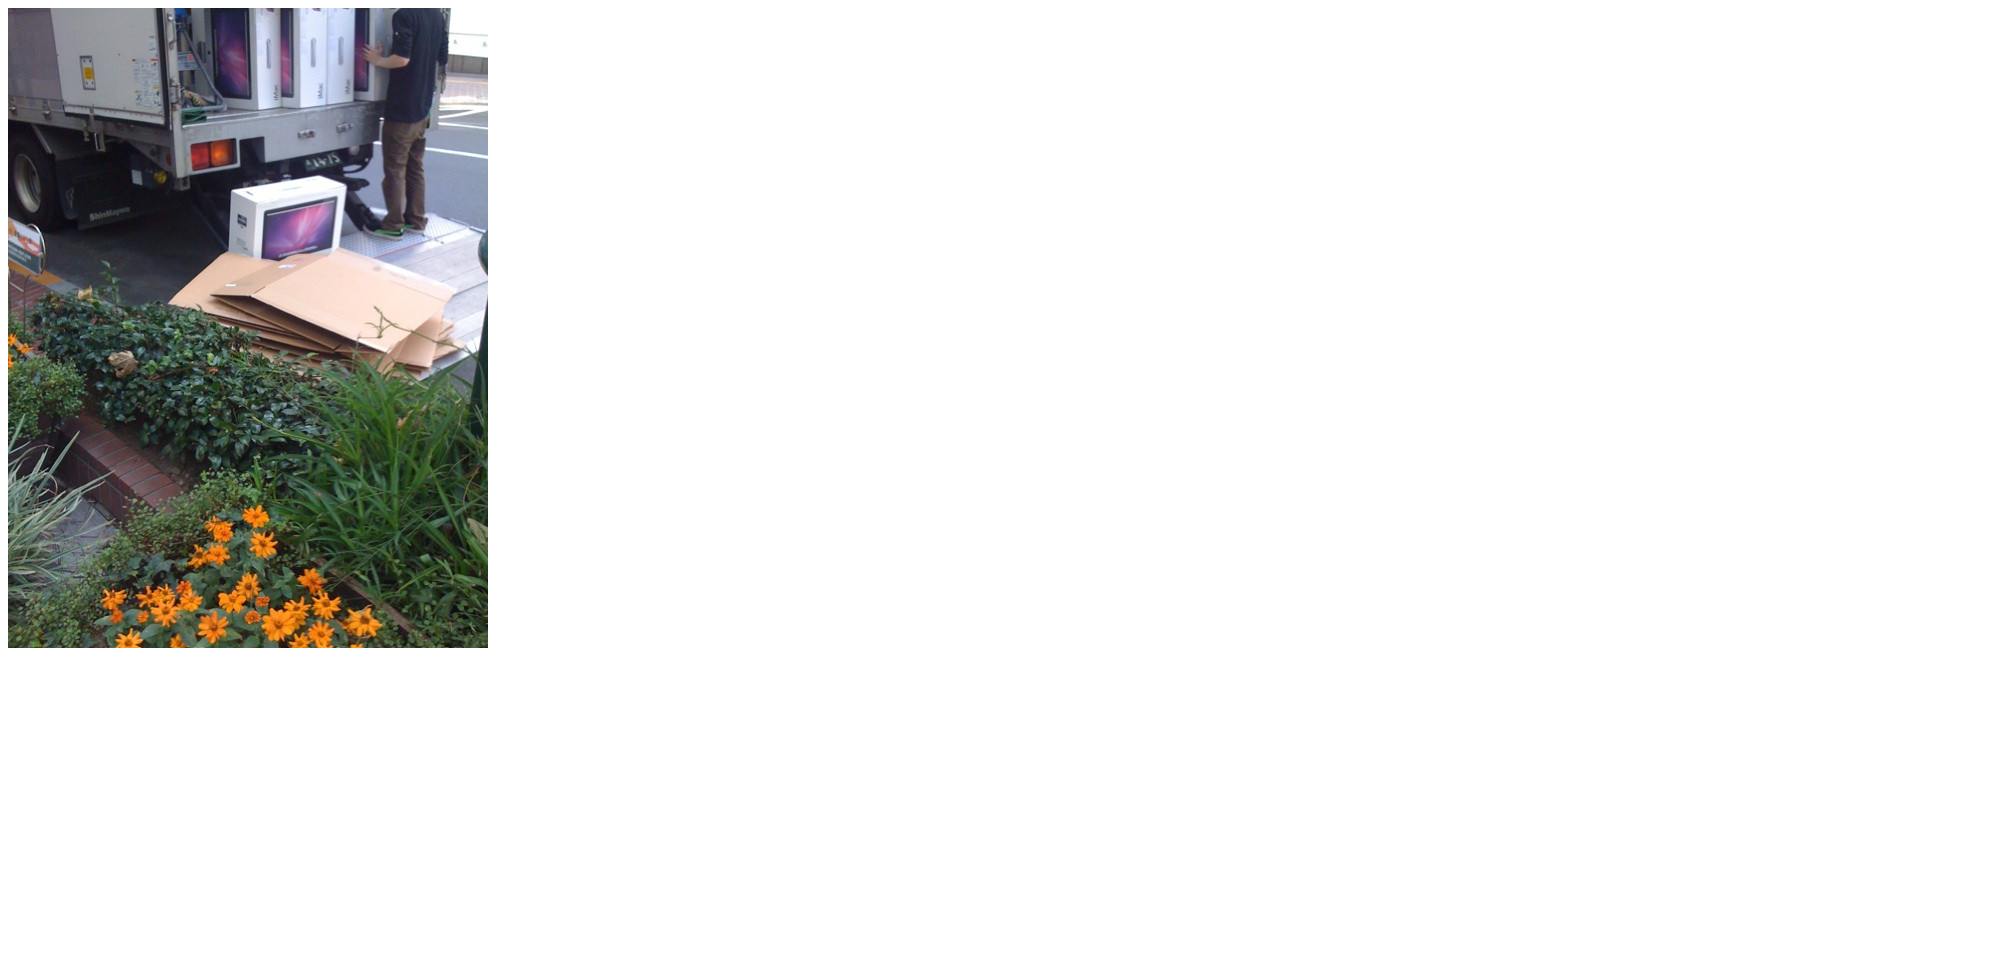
void draw(SkCanvas* canvas) {
	SkPaint paint;
	paint.setAntiAlias(true);
	canvas->clear(0xffffffff);
	canvas->drawImageRect(SkImages::DeferredFromEncodedData(SkData::MakeFromFileName("img1.png")), SkRect::MakeXYWH(8, 8, 480, 640), SkSamplingOptions());
}
